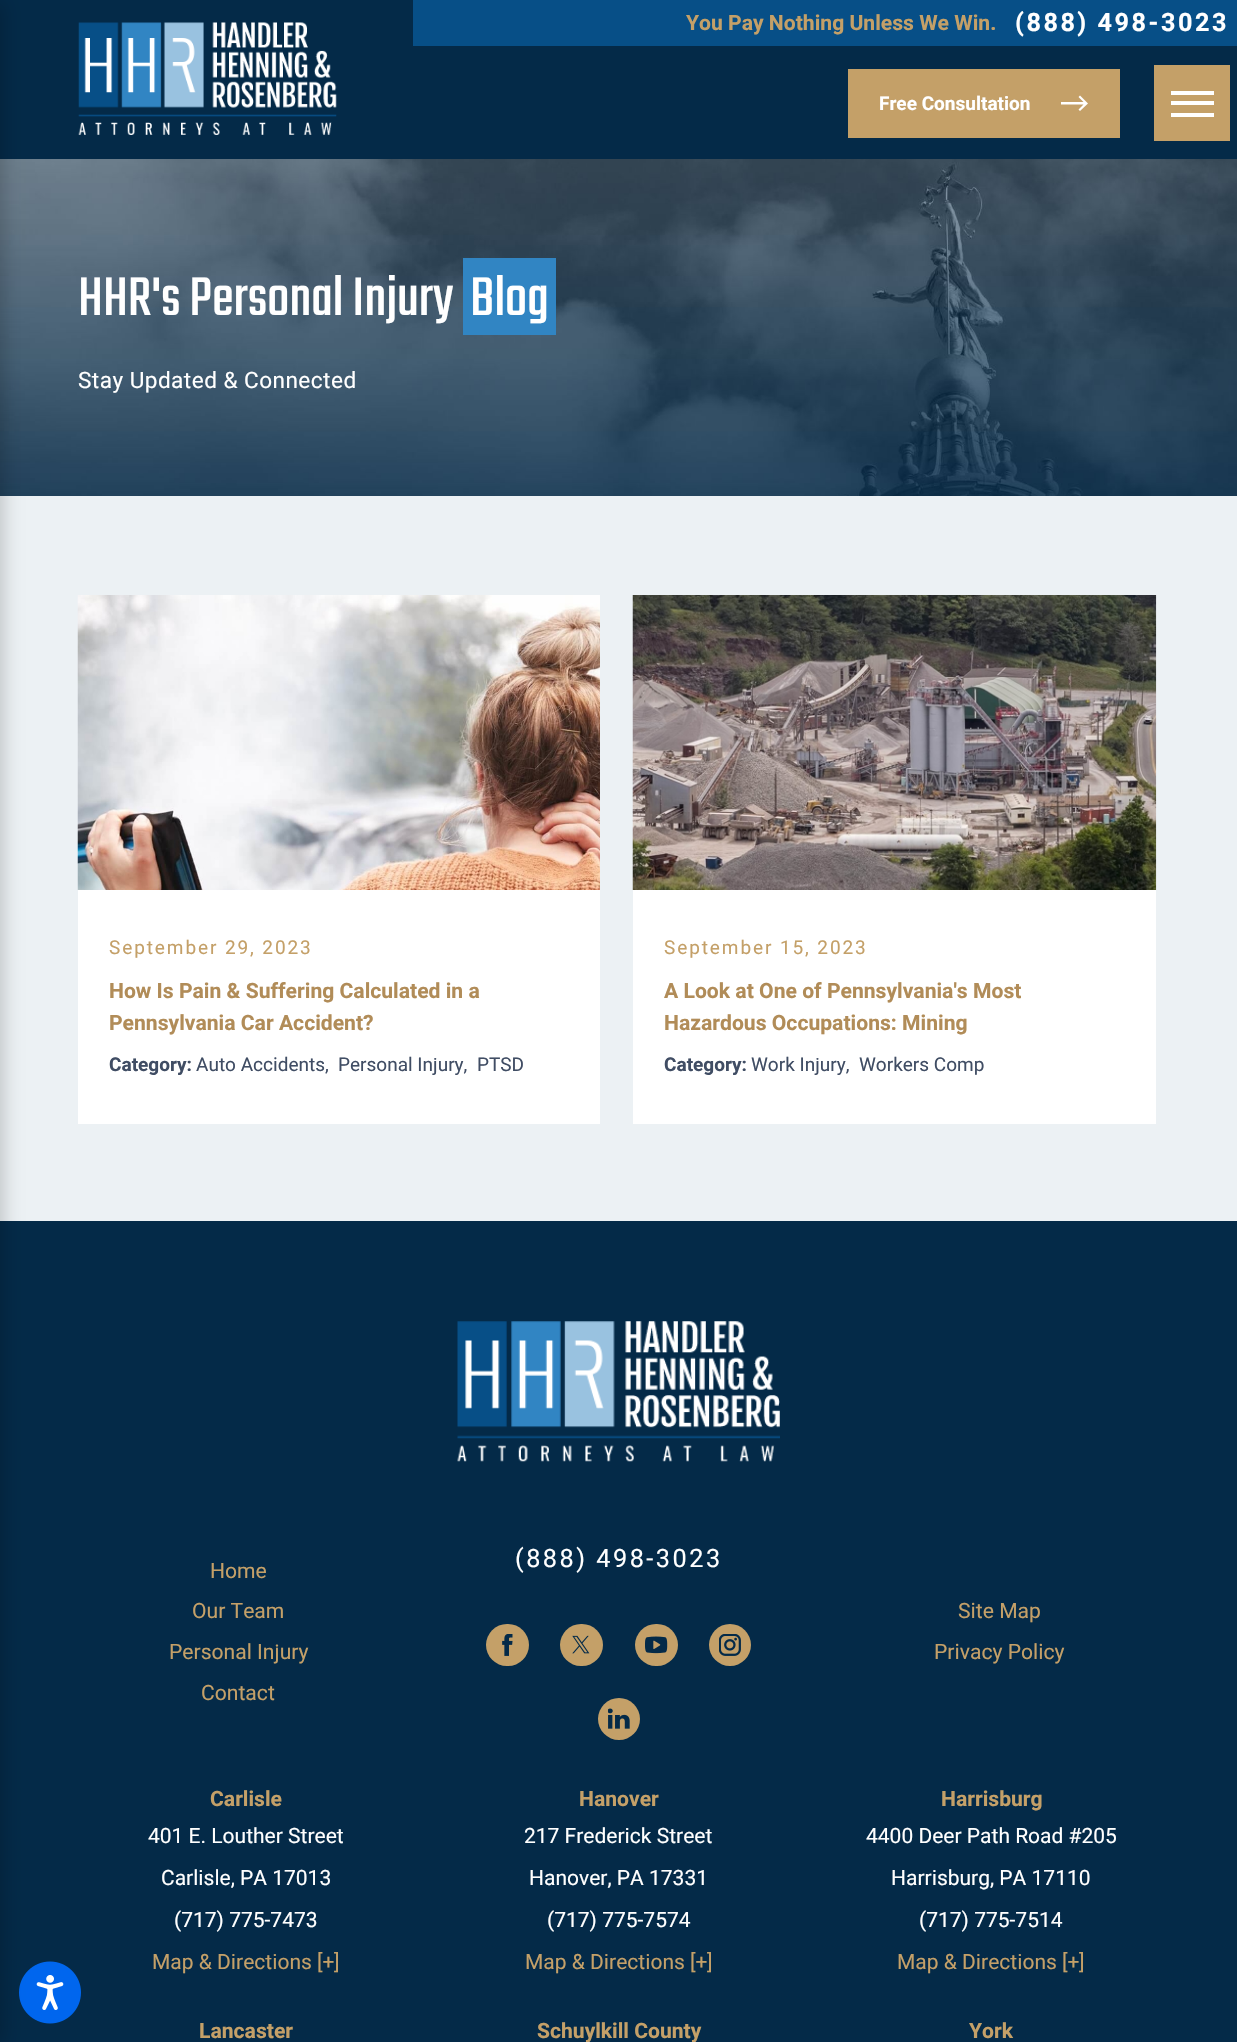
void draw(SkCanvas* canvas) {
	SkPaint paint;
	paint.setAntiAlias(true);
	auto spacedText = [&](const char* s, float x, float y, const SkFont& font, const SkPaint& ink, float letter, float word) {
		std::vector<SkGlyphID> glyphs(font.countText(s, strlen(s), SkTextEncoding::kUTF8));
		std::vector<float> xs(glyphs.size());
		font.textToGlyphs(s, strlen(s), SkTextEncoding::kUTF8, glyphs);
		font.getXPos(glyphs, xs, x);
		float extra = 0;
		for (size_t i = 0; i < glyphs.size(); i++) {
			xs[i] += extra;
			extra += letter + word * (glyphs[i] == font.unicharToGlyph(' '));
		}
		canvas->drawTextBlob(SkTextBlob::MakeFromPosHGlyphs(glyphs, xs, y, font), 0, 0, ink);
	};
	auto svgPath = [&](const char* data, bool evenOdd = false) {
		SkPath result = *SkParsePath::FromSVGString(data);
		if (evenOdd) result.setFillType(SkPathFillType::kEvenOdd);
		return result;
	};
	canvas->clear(0xffffffff);
	paint.setColor(0xff042a48);
	canvas->drawRect(SkRect::MakeXYWH(0, 0, 1237, 159), paint);
	canvas->drawImageRect(SkImages::DeferredFromEncodedData(SkData::MakeFromFileName("img1.png")), SkRect::MakeXYWH(78, 22, 259, 113), SkSamplingOptions());
	paint.setColor(0xff074f87);
	canvas->drawRect(SkRect::MakeXYWH(413, 0, 824, 46), paint);
	SkFont f1(fontMgr->matchFamilyStyle("Heebo", SkFontStyle::Bold()), 21.1);
	f1.setSubpixel(true);
	paint.setColor(0xffc4a068);
	canvas->drawString("You Pay Nothing Unless We Win.", 686, 30, f1, paint);
	SkFont f2(fontMgr->matchFamilyStyle("Heebo", SkFontStyle::Bold()), 25.25);
	f2.setSubpixel(true);
	paint.setColor(0xffffffff);
	spacedText("(888) 498-3023", 1015, 31, f2, paint, 2.5, 0);
	paint.setColor(0xff042a48);
	canvas->drawRect(SkRect::MakeXYWH(0, 1221, 1237, 821), paint);
	canvas->drawImageRect(SkImages::DeferredFromEncodedData(SkData::MakeFromFileName("img2.png")), SkRect::MakeXYWH(19, 1961, 62, 63), SkSamplingOptions());
	canvas->drawImageRect(SkImages::DeferredFromEncodedData(SkData::MakeFromFileName("img3.png")), SkRect::MakeXYWH(0, 159, 1237, 337), SkSamplingOptions());
	paint.setColor(0xffecf1f4);
	canvas->drawRect(SkRect::MakeXYWH(0, 496, 1237, 725), paint);
	paint.setColor(0x33000000);
	paint.setMaskFilter(SkMaskFilter::MakeBlur(kNormal_SkBlurStyle, 9.5));
	canvas->drawRect(SkRect::MakeXYWH(-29, 3, 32, 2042), paint);
	paint.setMaskFilter(nullptr);
	paint.setColor(0xffc4a068);
	canvas->drawRect(SkRect::MakeXYWH(848, 69, 272, 69), paint);
	SkFont f3(fontMgr->matchFamilyStyle("Heebo", SkFontStyle::Bold()), 19);
	f3.setSubpixel(true);
	paint.setColor(0xffffffff);
	canvas->drawString("Free Consultation", 879, 110, f3, paint);
	canvas->drawPath(svgPath("M1080 95.5L1078.5 97L1083.5 102H1061V104.5H1083.5L1078.5 109.5L1080 111L1088 103.5Z"), paint);
	paint.setColor(0xffc4a068);
	canvas->drawRect(SkRect::MakeXYWH(1154, 65, 76, 76), paint);
	paint.setColor(0xffffffff);
	canvas->drawRect(SkRect::MakeXYWH(1171, 91, 43, 4), paint);
	canvas->drawRect(SkRect::MakeXYWH(1171, 101, 43, 4), paint);
	canvas->drawRect(SkRect::MakeXYWH(1171, 113, 43, 4), paint);
	SkFont f4(fontMgr->matchFamilyStyle("Teko", SkFontStyle(300, SkFontStyle::kNormal_Width, SkFontStyle::kUpright_Slant)), 59.75);
	f4.setSubpixel(true);
	canvas->drawString("HHR's Personal Injury", 78, 315, f4, paint);
	paint.setColor(0xff3185c3);
	canvas->drawRect(SkRect::MakeXYWH(463, 258, 93, 77), paint);
	paint.setColor(0xffffffff);
	canvas->drawString("Blog", 470, 315, f4, paint);
	SkFont f5(fontMgr->matchFamilyStyle("Heebo", SkFontStyle::Normal()), 22.6);
	f5.setSubpixel(true);
	spacedText("Stay Updated & Connected", 78, 388, f5, paint, 0.45, 0);
	canvas->drawImageRect(SkImages::DeferredFromEncodedData(SkData::MakeFromFileName("img4.png")), SkRect::MakeXYWH(77, 595, 523, 295), SkSamplingOptions());
	canvas->drawRect(SkRect::MakeXYWH(78, 890, 522, 234), paint);
	SkFont f6(fontMgr->matchFamilyStyle("Heebo", SkFontStyle::Normal()), 19);
	f6.setSubpixel(true);
	paint.setColor(0xffc4a068);
	spacedText("September 29, 2023", 109, 954, f6, paint, 1.9, 0);
	paint.setColor(0xffb18c58);
	canvas->drawString("How Is Pain & Suffering Calculated in a", 109, 998, f1, paint);
	canvas->drawString("Pennsylvania Car Accident?", 109, 1030, f1, paint);
	paint.setColor(0xff404d64);
	canvas->drawString("Category:", 109, 1071, f3, paint);
	canvas->drawString("Auto Accidents,", 196, 1071, f6, paint);
	canvas->drawString("Personal Injury,", 338, 1071, f6, paint);
	canvas->drawString("PTSD", 477, 1071, f6, paint);
	canvas->drawImageRect(SkImages::DeferredFromEncodedData(SkData::MakeFromFileName("img5.png")), SkRect::MakeXYWH(632, 595, 525, 295), SkSamplingOptions());
	paint.setColor(0xffffffff);
	canvas->drawRect(SkRect::MakeXYWH(633, 890, 523, 234), paint);
	paint.setColor(0xffc4a068);
	spacedText("September 15, 2023", 664, 954, f6, paint, 1.9, 0);
	paint.setColor(0xffb18c58);
	canvas->drawString("A Look at One of Pennsylvania's Most", 664, 998, f1, paint);
	canvas->drawString("Hazardous Occupations: Mining", 664, 1030, f1, paint);
	paint.setColor(0xff404d64);
	canvas->drawString("Category:", 664, 1071, f3, paint);
	canvas->drawString("Work Injury,", 751, 1071, f6, paint);
	canvas->drawString("Workers Comp", 859, 1071, f6, paint);
	canvas->drawImageRect(SkImages::DeferredFromEncodedData(SkData::MakeFromFileName("img6.png")), SkRect::MakeXYWH(457, 1321, 323, 141), SkSamplingOptions());
	SkFont f7(fontMgr->matchFamilyStyle("Heebo", SkFontStyle::Normal()), 25.25);
	f7.setSubpixel(true);
	paint.setColor(0xffffffff);
	spacedText("(888) 498-3023", 515, 1567, f7, paint, 2.5, 0);
	paint.setColor(0xffc4a068);
	canvas->drawRoundRect(SkRect::MakeXYWH(486, 1624, 43, 42), 21, 21, paint);
	canvas->drawImageRect(SkImages::DeferredFromEncodedData(SkData::MakeFromFileName("img7.png")), SkRect::MakeXYWH(502, 1634, 11, 22), SkSamplingOptions());
	canvas->drawRoundRect(SkRect::MakeXYWH(560, 1624, 43, 42), 21, 21, paint);
	canvas->drawImageRect(SkImages::DeferredFromEncodedData(SkData::MakeFromFileName("img8.png")), SkRect::MakeXYWH(572, 1635, 18, 19), SkSamplingOptions());
	canvas->drawRoundRect(SkRect::MakeXYWH(635, 1624, 43, 42), 21, 21, paint);
	canvas->drawImageRect(SkImages::DeferredFromEncodedData(SkData::MakeFromFileName("img9.png")), SkRect::MakeXYWH(645, 1636, 23, 18), SkSamplingOptions());
	canvas->drawCircle(730, 1645, 21, paint);
	canvas->drawImageRect(SkImages::DeferredFromEncodedData(SkData::MakeFromFileName("img10.png")), SkRect::MakeXYWH(719, 1634, 22, 22), SkSamplingOptions());
	canvas->drawCircle(619, 1719, 21, paint);
	canvas->drawImageRect(SkImages::DeferredFromEncodedData(SkData::MakeFromFileName("img11.png")), SkRect::MakeXYWH(608, 1708, 22, 21), SkSamplingOptions());
	SkFont f8(fontMgr->matchFamilyStyle("Heebo", SkFontStyle::Normal()), 21.1);
	f8.setSubpixel(true);
	canvas->drawString("Home", 210, 1578, f8, paint);
	canvas->drawString("Our Team", 192, 1618, f8, paint);
	canvas->drawString("Personal Injury", 169, 1659, f8, paint);
	canvas->drawString("Contact", 201, 1700, f8, paint);
	canvas->drawString("Site Map", 958, 1618, f8, paint);
	canvas->drawString("Privacy Policy", 934, 1659, f8, paint);
	canvas->drawString("Carlisle", 210, 1806, f1, paint);
	SkFont f9(fontMgr->matchFamilyStyle("Heebo", SkFontStyle::Normal()), 21);
	f9.setSubpixel(true);
	paint.setColor(0xffffffff);
	canvas->drawString("401 E. Louther Street", 148, 1843, f9, paint);
	canvas->drawString("Carlisle, PA 17013", 161, 1885, f9, paint);
	canvas->drawString("(717) 775-7473", 174, 1927, f9, paint);
	paint.setColor(0xffc4a068);
	canvas->drawString("Map & Directions [+]", 152, 1969, f9, paint);
	canvas->drawString("Hanover", 579, 1806, f1, paint);
	paint.setColor(0xffffffff);
	canvas->drawString("217 Frederick Street", 524, 1843, f9, paint);
	canvas->drawString("Hanover, PA 17331", 529, 1885, f9, paint);
	canvas->drawString("(717) 775-7574", 547, 1927, f9, paint);
	paint.setColor(0xffc4a068);
	canvas->drawString("Map & Directions [+]", 525, 1969, f9, paint);
	canvas->drawString("Harrisburg", 941, 1806, f1, paint);
	paint.setColor(0xffffffff);
	canvas->drawString("4400 Deer Path Road #205", 866, 1843, f9, paint);
	canvas->drawString("Harrisburg, PA 17110", 891, 1885, f9, paint);
	canvas->drawString("(717) 775-7514", 919, 1927, f9, paint);
	paint.setColor(0xffc4a068);
	canvas->drawString("Map & Directions [+]", 897, 1969, f9, paint);
	canvas->drawString("Lancaster", 199, 2038, f1, paint);
	canvas->drawString("Schuylkill County", 537, 2038, f1, paint);
	canvas->drawString("York", 969, 2038, f1, paint);
}
